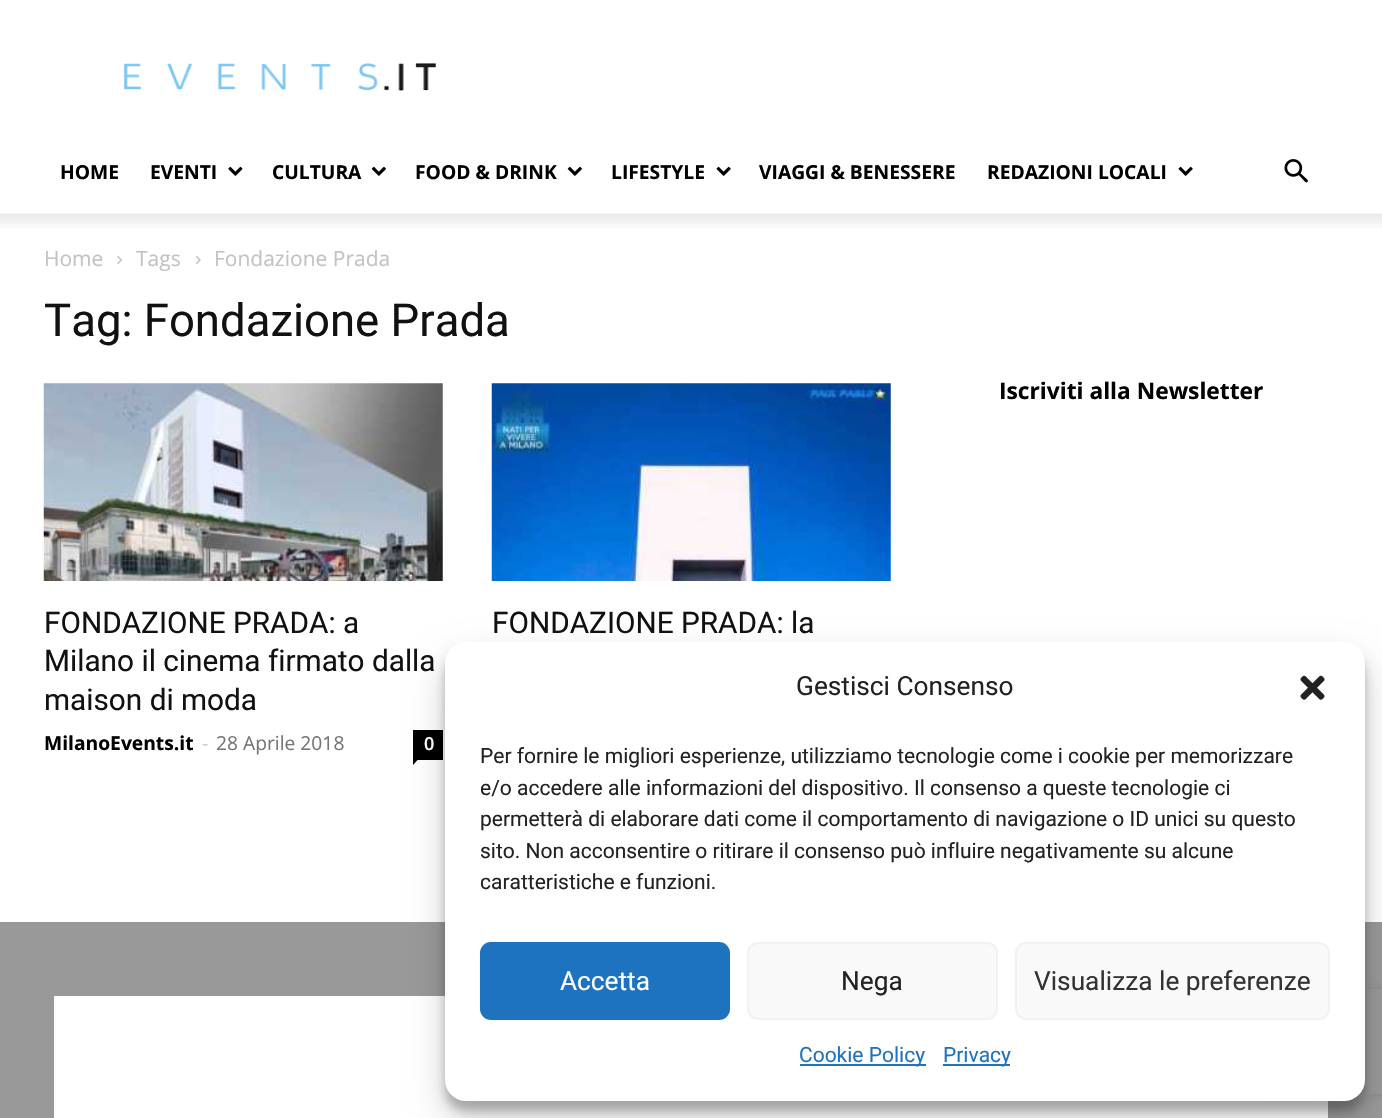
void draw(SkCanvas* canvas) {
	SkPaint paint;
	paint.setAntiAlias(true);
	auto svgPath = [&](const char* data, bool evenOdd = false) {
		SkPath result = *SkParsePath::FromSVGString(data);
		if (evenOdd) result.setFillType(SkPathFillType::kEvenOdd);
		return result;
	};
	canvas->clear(0xffffffff);
	canvas->drawImageRect(SkImages::DeferredFromEncodedData(SkData::MakeFromFileName("img1.png")), SkRect::MakeXYWH(124, 63, 312, 28), SkSamplingOptions());
	SkFont f1(fontMgr->matchFamilyStyle("Open Sans", SkFontStyle::Bold()), 19.25);
	f1.setSubpixel(true);
	paint.setColor(0xff000000);
	canvas->drawString("HOME", 60, 179, f1, paint);
	canvas->drawString("EVENTI", 150, 179, f1, paint);
	canvas->drawImageRect(SkImages::DeferredFromEncodedData(SkData::MakeFromFileName("img2.png")), SkRect::MakeXYWH(228, 166, 15, 10), SkSamplingOptions());
	canvas->drawString("CULTURA", 272, 179, f1, paint);
	canvas->drawImageRect(SkImages::DeferredFromEncodedData(SkData::MakeFromFileName("img3.png")), SkRect::MakeXYWH(371, 166, 15, 10), SkSamplingOptions());
	canvas->drawString("FOOD & DRINK", 415, 179, f1, paint);
	canvas->drawImageRect(SkImages::DeferredFromEncodedData(SkData::MakeFromFileName("img3.png")), SkRect::MakeXYWH(567, 166, 15, 10), SkSamplingOptions());
	canvas->drawString("LIFESTYLE", 611, 179, f1, paint);
	canvas->drawImageRect(SkImages::DeferredFromEncodedData(SkData::MakeFromFileName("img4.png")), SkRect::MakeXYWH(716, 166, 15, 10), SkSamplingOptions());
	canvas->drawString("VIAGGI & BENESSERE", 759, 179, f1, paint);
	canvas->drawString("REDAZIONI LOCALI", 987, 179, f1, paint);
	canvas->drawImageRect(SkImages::DeferredFromEncodedData(SkData::MakeFromFileName("img4.png")), SkRect::MakeXYWH(1178, 166, 15, 10), SkSamplingOptions());
	canvas->drawImageRect(SkImages::DeferredFromEncodedData(SkData::MakeFromFileName("img5.png")), SkRect::MakeXYWH(1284, 159, 24, 24), SkSamplingOptions());
	canvas->drawImageRect(SkImages::DeferredFromEncodedData(SkData::MakeFromFileName("img6.png")), SkRect::MakeXYWH(0, 213, 1382, 15), SkSamplingOptions());
	SkFont f2(fontMgr->matchFamilyStyle("Open Sans", SkFontStyle::Normal()), 21);
	f2.setSubpixel(true);
	paint.setColor(0xffc3c3c3);
	canvas->drawString("Home", 44, 266, f2, paint);
	canvas->drawImageRect(SkImages::DeferredFromEncodedData(SkData::MakeFromFileName("img7.png")), SkRect::MakeXYWH(117, 256, 5, 8), SkSamplingOptions());
	canvas->drawString("Tags", 136, 266, f2, paint);
	canvas->drawImageRect(SkImages::DeferredFromEncodedData(SkData::MakeFromFileName("img8.png")), SkRect::MakeXYWH(196, 256, 5, 8), SkSamplingOptions());
	canvas->drawString("Fondazione Prada", 214, 266, f2, paint);
	SkFont f3(fontMgr->matchFamilyStyle("Roboto", SkFontStyle::Normal()), 45.5);
	f3.setSubpixel(true);
	paint.setColor(0xff111111);
	canvas->drawString("Tag: Fondazione Prada", 44, 336, f3, paint);
	canvas->drawImageRect(SkImages::DeferredFromEncodedData(SkData::MakeFromFileName("img9.png")), SkRect::MakeXYWH(43, 383, 400, 198), SkSamplingOptions());
	SkFont f4(fontMgr->matchFamilyStyle("Roboto", SkFontStyle::Normal()), 29.75);
	f4.setSubpixel(true);
	canvas->drawString("FONDAZIONE PRADA: a", 44, 633, f4, paint);
	canvas->drawString("Milano il cinema firmato dalla", 44, 671, f4, paint);
	canvas->drawString("maison di moda", 44, 710, f4, paint);
	paint.setColor(0xff000000);
	canvas->drawString("MilanoEvents.it", 44, 750, f1, paint);
	SkFont f5(fontMgr->matchFamilyStyle("Open Sans", SkFontStyle::Normal()), 19.25);
	f5.setSubpixel(true);
	paint.setColor(0xffcccccc);
	canvas->drawString("-", 202, 750, f5, paint);
	paint.setColor(0xff767676);
	canvas->drawString("28 Aprile 2018", 216, 750, f5, paint);
	paint.setColor(0xff000000);
	canvas->drawRect(SkRect::MakeXYWH(413, 730, 30, 30), paint);
	SkFont f6(fontMgr->matchFamilyStyle("Open Sans", SkFontStyle(600, SkFontStyle::kNormal_Width, SkFontStyle::kUpright_Slant)), 18);
	f6.setSubpixel(true);
	paint.setColor(0xffffffff);
	canvas->drawString("0", 424, 750, f6, paint);
	paint.setColor(0xff000000);
	canvas->drawPath(svgPath("M413 759.5H418L413 765Z"), paint);
	canvas->drawImageRect(SkImages::DeferredFromEncodedData(SkData::MakeFromFileName("img10.png")), SkRect::MakeXYWH(491, 383, 400, 198), SkSamplingOptions());
	paint.setColor(0xff111111);
	canvas->drawString("FONDAZIONE PRADA: la", 492, 633, f4, paint);
	SkFont f7(fontMgr->matchFamilyStyle("Open Sans", SkFontStyle::Bold()), 22.75);
	f7.setSubpixel(true);
	paint.setColor(0xff000000);
	canvas->drawString("Iscriviti alla Newsletter", 999, 399, f7, paint);
	paint.setColor(0xff999999);
	canvas->drawRect(SkRect::MakeXYWH(0, 922, 1382, 196), paint);
	paint.setColor(0xffffffff);
	canvas->drawRect(SkRect::MakeXYWH(54, 996, 1274, 122), paint);
	paint.setColor(0x3b000000);
	paint.setMaskFilter(SkMaskFilter::MakeBlur(kNormal_SkBlurStyle, 5));
	canvas->drawRoundRect(SkRect::MakeXYWH(445, 653, 920, 458), 21, 21, paint);
	paint.setMaskFilter(nullptr);
	paint.setColor(0x30000000);
	paint.setMaskFilter(SkMaskFilter::MakeBlur(kNormal_SkBlurStyle, 17.5));
	canvas->drawRoundRect(SkRect::MakeXYWH(445, 660, 920, 458), 21, 21, paint);
	paint.setMaskFilter(nullptr);
	canvas->save();
	canvas->clipPath(svgPath("M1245 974H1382V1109H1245ZM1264 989H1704C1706 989 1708 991 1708 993V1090C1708 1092 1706 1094 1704 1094H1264C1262 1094 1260 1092 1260 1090V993C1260 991 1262 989 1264 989Z", true), true);
	paint.setColor(0xff808080);
	paint.setMaskFilter(SkMaskFilter::MakeBlur(kNormal_SkBlurStyle, 4.5));
	canvas->drawRoundRect(SkRect::MakeXYWH(1260, 989, 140, 105), 4, 4, paint);
	paint.setMaskFilter(nullptr);
	canvas->restore();
	paint.setColor(0xffffffff);
	canvas->drawRoundRect(SkRect::MakeXYWH(445, 642, 920, 459), 21, 21, paint);
	SkFont f8(fontMgr->matchFamilyStyle("Roboto", SkFontStyle::Normal()), 26.25);
	f8.setSubpixel(true);
	paint.setColor(0xff222222);
	canvas->drawString("Gestisci Consenso", 796, 695, f8, paint);
	canvas->drawImageRect(SkImages::DeferredFromEncodedData(SkData::MakeFromFileName("img11.png")), SkRect::MakeXYWH(1300, 675, 25, 25), SkSamplingOptions());
	SkFont f9(fontMgr->matchFamilyStyle("Roboto", SkFontStyle::Normal()), 21);
	f9.setSubpixel(true);
	canvas->drawString("Per fornire le migliori esperienze, utilizziamo tecnologie come i cookie per memorizzare", 480, 763, f9, paint);
	canvas->drawString("e/o accedere alle informazioni del dispositivo. Il consenso a queste tecnologie ci", 480, 795, f9, paint);
	canvas->drawString("permetterà di elaborare dati come il comportamento di navigazione o ID unici su questo", 480, 826, f9, paint);
	canvas->drawString("sito. Non acconsentire o ritirare il consenso può influire negativamente su alcune", 480, 858, f9, paint);
	canvas->drawString("caratteristiche e funzioni.", 480, 889, f9, paint);
	paint.setColor(0xff1e73be);
	canvas->drawRoundRect(SkRect::MakeXYWH(481, 943, 248, 76), 10, 10, paint);
	paint.setStroke(true);
	paint.setStrokeWidth(2);
	canvas->drawRoundRect(SkRect::MakeXYWH(481, 943, 248, 76), 10, 10, paint);
	paint.setStroke(false);
	paint.setColor(0xffffffff);
	canvas->drawString("Accetta", 560, 990, f8, paint);
	paint.setColor(0xfff9f9f9);
	canvas->drawRoundRect(SkRect::MakeXYWH(748, 943, 249, 76), 10, 10, paint);
	paint.setStroke(true);
	paint.setColor(0xfff2f2f2);
	canvas->drawRoundRect(SkRect::MakeXYWH(748, 943, 249, 76), 10, 10, paint);
	paint.setStroke(false);
	paint.setColor(0xff222222);
	canvas->drawString("Nega", 841, 990, f8, paint);
	paint.setColor(0xfff9f9f9);
	canvas->drawRoundRect(SkRect::MakeXYWH(1016, 943, 313, 76), 10, 10, paint);
	paint.setStroke(true);
	paint.setColor(0xfff2f2f2);
	canvas->drawRoundRect(SkRect::MakeXYWH(1016, 943, 313, 76), 10, 10, paint);
	paint.setStroke(false);
	paint.setColor(0xff333333);
	canvas->drawString("Visualizza le preferenze", 1034, 990, f8, paint);
	paint.setColor(0xff1e73be);
	canvas->drawRect(SkRect::MakeXYWH(800, 1064, 126, 2), paint);
	canvas->drawString("Cookie Policy", 799, 1062, f9, paint);
	canvas->drawRect(SkRect::MakeXYWH(943, 1064, 67, 2), paint);
	canvas->drawString("Privacy", 943, 1062, f9, paint);
}
